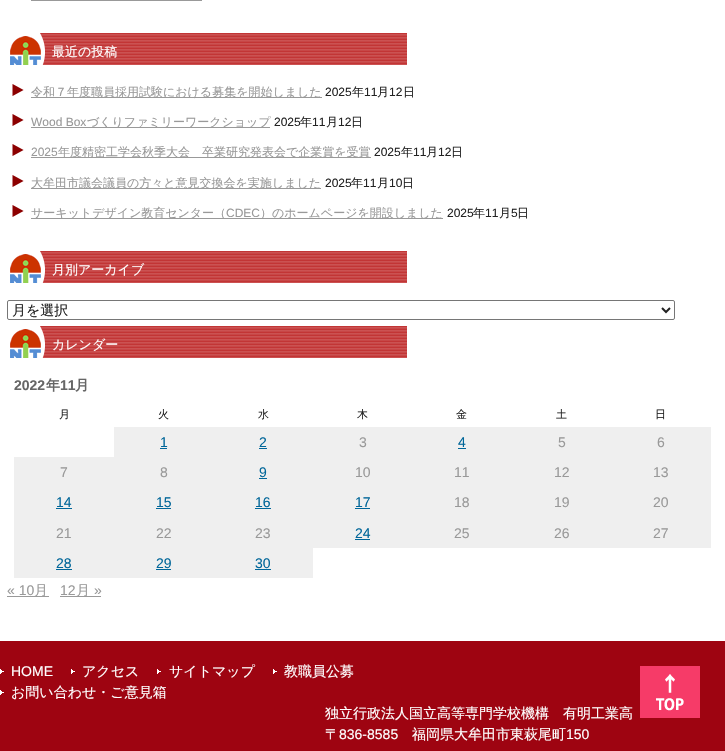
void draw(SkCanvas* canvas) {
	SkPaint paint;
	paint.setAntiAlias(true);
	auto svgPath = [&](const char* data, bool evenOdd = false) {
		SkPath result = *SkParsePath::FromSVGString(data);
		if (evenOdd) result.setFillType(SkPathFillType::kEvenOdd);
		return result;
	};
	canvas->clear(0xffffffff);
	paint.setColor(0xff999999);
	canvas->drawRect(SkRect::MakeXYWH(31, 0, 171, 1), paint);
	canvas->drawImageRect(SkImages::DeferredFromEncodedData(SkData::MakeFromFileName("img1.png")), SkRect::MakeXYWH(10, 33, 397, 32), SkSamplingOptions());
	SkFont f1(fontMgr->matchFamilyStyle("WenQuanYi Zen Hei", SkFontStyle(500, SkFontStyle::kNormal_Width, SkFontStyle::kUpright_Slant)), 13);
	f1.setSubpixel(true);
	paint.setColor(0xffffffff);
	canvas->drawString("最近の投稿", 52, 56, f1, paint);
	canvas->drawImageRect(SkImages::DeferredFromEncodedData(SkData::MakeFromFileName("img2.png")), SkRect::MakeXYWH(12, 84, 12, 12), SkSamplingOptions());
	paint.setColor(0xff999999);
	canvas->drawRect(SkRect::MakeXYWH(31, 97, 291, 1), paint);
	SkFont f2(fontMgr->matchFamilyStyle("WenQuanYi Zen Hei", SkFontStyle(500, SkFontStyle::kNormal_Width, SkFontStyle::kUpright_Slant)), 12);
	f2.setSubpixel(true);
	canvas->drawString("令和７年度職員採用試験における募集を開始しました", 31, 96, f2, paint);
	SkFont f3(fontMgr->matchFamilyStyle("Liberation Sans", SkFontStyle::Normal()), 12);
	f3.setSubpixel(true);
	paint.setColor(0xff222222);
	canvas->drawString("2025", 325, 96, f3, paint);
	canvas->drawString("年", 352, 96, f2, paint);
	canvas->drawString("11", 364, 96, f3, paint);
	canvas->drawString("月", 377, 96, f2, paint);
	canvas->drawString("12", 389, 96, f3, paint);
	canvas->drawString("日", 403, 96, f2, paint);
	canvas->drawImageRect(SkImages::DeferredFromEncodedData(SkData::MakeFromFileName("img2.png")), SkRect::MakeXYWH(12, 114, 12, 12), SkSamplingOptions());
	paint.setColor(0xff999999);
	canvas->drawString("Wood Box", 31, 126, f3, paint);
	canvas->drawRect(SkRect::MakeXYWH(31, 127, 239, 1), paint);
	canvas->drawString("づくりファミリーワークショップ", 87, 126, f2, paint);
	paint.setColor(0xff222222);
	canvas->drawString("2025", 274, 126, f3, paint);
	canvas->drawString("年", 300, 126, f2, paint);
	canvas->drawString("11", 312, 126, f3, paint);
	canvas->drawString("月", 326, 126, f2, paint);
	canvas->drawString("12", 338, 126, f3, paint);
	canvas->drawString("日", 351, 126, f2, paint);
	canvas->drawImageRect(SkImages::DeferredFromEncodedData(SkData::MakeFromFileName("img2.png")), SkRect::MakeXYWH(12, 144, 12, 12), SkSamplingOptions());
	paint.setColor(0xff999999);
	canvas->drawString("2025", 31, 156, f3, paint);
	canvas->drawRect(SkRect::MakeXYWH(31, 157, 340, 1), paint);
	canvas->drawString("年度精密工学会秋季大会　卒業研究発表会で企業賞を受賞", 58, 156, f2, paint);
	paint.setColor(0xff222222);
	canvas->drawString("2025", 374, 156, f3, paint);
	canvas->drawString("年", 401, 156, f2, paint);
	canvas->drawString("11", 413, 156, f3, paint);
	canvas->drawString("月", 426, 156, f2, paint);
	canvas->drawString("12", 438, 156, f3, paint);
	canvas->drawString("日", 451, 156, f2, paint);
	canvas->drawImageRect(SkImages::DeferredFromEncodedData(SkData::MakeFromFileName("img2.png")), SkRect::MakeXYWH(12, 175, 12, 12), SkSamplingOptions());
	paint.setColor(0xff999999);
	canvas->drawRect(SkRect::MakeXYWH(31, 188, 290, 1), paint);
	canvas->drawString("大牟田市議会議員の方々と意見交換会を実施しました", 31, 187, f2, paint);
	paint.setColor(0xff222222);
	canvas->drawString("2025", 325, 187, f3, paint);
	canvas->drawString("年", 351, 187, f2, paint);
	canvas->drawString("11", 363, 187, f3, paint);
	canvas->drawString("月", 377, 187, f2, paint);
	canvas->drawString("10", 389, 187, f3, paint);
	canvas->drawString("日", 402, 187, f2, paint);
	canvas->drawImageRect(SkImages::DeferredFromEncodedData(SkData::MakeFromFileName("img2.png")), SkRect::MakeXYWH(12, 205, 12, 12), SkSamplingOptions());
	paint.setColor(0xff999999);
	canvas->drawRect(SkRect::MakeXYWH(31, 218, 412, 1), paint);
	canvas->drawString("サーキットデザイン教育センター（", 31, 217, f2, paint);
	canvas->drawString("CDEC", 226, 217, f3, paint);
	canvas->drawString("）のホームページを開設しました", 260, 217, f2, paint);
	paint.setColor(0xff222222);
	canvas->drawString("2025", 447, 217, f3, paint);
	canvas->drawString("年", 473, 217, f2, paint);
	canvas->drawString("11", 485, 217, f3, paint);
	canvas->drawString("月", 499, 217, f2, paint);
	canvas->drawString("5", 511, 217, f3, paint);
	canvas->drawString("日", 517, 217, f2, paint);
	canvas->drawImageRect(SkImages::DeferredFromEncodedData(SkData::MakeFromFileName("img1.png")), SkRect::MakeXYWH(10, 251, 397, 32), SkSamplingOptions());
	paint.setColor(0xffffffff);
	canvas->drawString("月別アーカイブ", 52, 274, f1, paint);
	paint.setStroke(true);
	paint.setStrokeWidth(1);
	paint.setColor(0xff767676);
	canvas->drawRoundRect(SkRect::MakeXYWH(7.5, 300.5, 667, 19), 1.5, 1.5, paint);
	paint.setStrokeWidth(2);
	paint.setColor(0xff222222);
	canvas->drawPath(svgPath("M662 308L666 312L670 308"), paint);
	SkFont f4(fontMgr->matchFamilyStyle("WenQuanYi Zen Hei", SkFontStyle(500, SkFontStyle::kNormal_Width, SkFontStyle::kUpright_Slant)), 14);
	f4.setSubpixel(true);
	paint.setStroke(false);
	canvas->drawString("月を選択", 12, 315, f4, paint);
	canvas->drawImageRect(SkImages::DeferredFromEncodedData(SkData::MakeFromFileName("img1.png")), SkRect::MakeXYWH(10, 326, 397, 32), SkSamplingOptions());
	paint.setColor(0xffffffff);
	canvas->drawString("カレンダー", 52, 349, f1, paint);
	SkFont f5(fontMgr->matchFamilyStyle("Liberation Sans", SkFontStyle::Bold()), 14);
	f5.setSubpixel(true);
	paint.setColor(0xff666666);
	canvas->drawString("2022", 14, 390, f5, paint);
	SkFont f6(fontMgr->matchFamilyStyle("WenQuanYi Zen Hei", SkFontStyle::Bold()), 14);
	f6.setSubpixel(true);
	canvas->drawString("年", 46, 390, f6, paint);
	canvas->drawString("11", 60, 390, f5, paint);
	canvas->drawString("月", 75, 390, f6, paint);
	SkFont f7(fontMgr->matchFamilyStyle("WenQuanYi Zen Hei", SkFontStyle(500, SkFontStyle::kNormal_Width, SkFontStyle::kUpright_Slant)), 11);
	f7.setSubpixel(true);
	paint.setColor(0xff222222);
	canvas->drawString("月", 59, 418, f7, paint);
	canvas->drawString("火", 158, 418, f7, paint);
	canvas->drawString("水", 258, 418, f7, paint);
	canvas->drawString("木", 357, 418, f7, paint);
	canvas->drawString("金", 456, 418, f7, paint);
	canvas->drawString("土", 556, 418, f7, paint);
	canvas->drawString("日", 655, 418, f7, paint);
	paint.setColor(0xffefefef);
	canvas->drawRect(SkRect::MakeXYWH(114, 427, 597, 30), paint);
	SkFont f8(fontMgr->matchFamilyStyle("Liberation Sans", SkFontStyle::Normal()), 14);
	f8.setSubpixel(true);
	paint.setColor(0xff006699);
	canvas->drawString("1", 160, 447, f8, paint);
	canvas->drawRect(SkRect::MakeXYWH(160, 448, 7, 1), paint);
	canvas->drawString("2", 259, 447, f8, paint);
	canvas->drawRect(SkRect::MakeXYWH(259, 448, 8, 1), paint);
	paint.setColor(0xff999999);
	canvas->drawString("3", 359, 447, f8, paint);
	paint.setColor(0xff006699);
	canvas->drawString("4", 458, 447, f8, paint);
	canvas->drawRect(SkRect::MakeXYWH(458, 448, 8, 1), paint);
	paint.setColor(0xff999999);
	canvas->drawString("5", 558, 447, f8, paint);
	canvas->drawString("6", 657, 447, f8, paint);
	paint.setColor(0xffefefef);
	canvas->drawRect(SkRect::MakeXYWH(14, 457, 697, 30), paint);
	paint.setColor(0xff999999);
	canvas->drawString("7", 60, 477, f8, paint);
	canvas->drawString("8", 160, 477, f8, paint);
	paint.setColor(0xff006699);
	canvas->drawString("9", 259, 477, f8, paint);
	canvas->drawRect(SkRect::MakeXYWH(259, 478, 8, 1), paint);
	paint.setColor(0xff999999);
	canvas->drawString("10", 355, 477, f8, paint);
	canvas->drawString("11", 454, 477, f8, paint);
	canvas->drawString("12", 554, 477, f8, paint);
	canvas->drawString("13", 653, 477, f8, paint);
	paint.setColor(0xffefefef);
	canvas->drawRect(SkRect::MakeXYWH(14, 487, 697, 31), paint);
	paint.setColor(0xff006699);
	canvas->drawString("14", 56, 507, f8, paint);
	canvas->drawRect(SkRect::MakeXYWH(56, 508, 16, 1), paint);
	canvas->drawString("15", 156, 507, f8, paint);
	canvas->drawRect(SkRect::MakeXYWH(156, 508, 15, 1), paint);
	canvas->drawString("16", 255, 507, f8, paint);
	canvas->drawRect(SkRect::MakeXYWH(255, 508, 16, 1), paint);
	canvas->drawString("17", 355, 507, f8, paint);
	canvas->drawRect(SkRect::MakeXYWH(355, 508, 15, 1), paint);
	paint.setColor(0xff999999);
	canvas->drawString("18", 454, 507, f8, paint);
	canvas->drawString("19", 554, 507, f8, paint);
	canvas->drawString("20", 653, 507, f8, paint);
	paint.setColor(0xffefefef);
	canvas->drawRect(SkRect::MakeXYWH(14, 518, 697, 30), paint);
	paint.setColor(0xff999999);
	canvas->drawString("21", 56, 538, f8, paint);
	canvas->drawString("22", 156, 538, f8, paint);
	canvas->drawString("23", 255, 538, f8, paint);
	paint.setColor(0xff006699);
	canvas->drawString("24", 355, 538, f8, paint);
	canvas->drawRect(SkRect::MakeXYWH(355, 539, 15, 1), paint);
	paint.setColor(0xff999999);
	canvas->drawString("25", 454, 538, f8, paint);
	canvas->drawString("26", 554, 538, f8, paint);
	canvas->drawString("27", 653, 538, f8, paint);
	paint.setColor(0xffefefef);
	canvas->drawRect(SkRect::MakeXYWH(14, 548, 299, 30), paint);
	paint.setColor(0xff006699);
	canvas->drawString("28", 56, 568, f8, paint);
	canvas->drawRect(SkRect::MakeXYWH(56, 569, 16, 1), paint);
	canvas->drawString("29", 156, 568, f8, paint);
	canvas->drawRect(SkRect::MakeXYWH(156, 569, 15, 1), paint);
	canvas->drawString("30", 255, 568, f8, paint);
	canvas->drawRect(SkRect::MakeXYWH(255, 569, 16, 1), paint);
	paint.setColor(0xff999999);
	canvas->drawString("« 10", 7, 595, f8, paint);
	canvas->drawRect(SkRect::MakeXYWH(7, 596, 42, 1), paint);
	canvas->drawString("月", 34, 595, f4, paint);
	canvas->drawString("12", 60, 595, f8, paint);
	canvas->drawRect(SkRect::MakeXYWH(60, 596, 41, 1), paint);
	canvas->drawString("月", 76, 595, f4, paint);
	canvas->drawString("»", 94, 595, f8, paint);
	paint.setColor(0xff9e0411);
	canvas->drawRect(SkRect::MakeXYWH(0, 641, 725, 110), paint);
	canvas->drawImageRect(SkImages::DeferredFromEncodedData(SkData::MakeFromFileName("img3.png")), SkRect::MakeXYWH(0, 669, 4, 5), SkSamplingOptions());
	paint.setColor(0xffffffff);
	canvas->drawString("HOME", 11, 676, f8, paint);
	canvas->drawImageRect(SkImages::DeferredFromEncodedData(SkData::MakeFromFileName("img3.png")), SkRect::MakeXYWH(71, 669, 4, 5), SkSamplingOptions());
	canvas->drawString("アクセス", 82, 676, f4, paint);
	canvas->drawImageRect(SkImages::DeferredFromEncodedData(SkData::MakeFromFileName("img3.png")), SkRect::MakeXYWH(157, 669, 4, 5), SkSamplingOptions());
	canvas->drawString("サイトマップ", 169, 676, f4, paint);
	canvas->drawImageRect(SkImages::DeferredFromEncodedData(SkData::MakeFromFileName("img3.png")), SkRect::MakeXYWH(273, 669, 4, 5), SkSamplingOptions());
	canvas->drawString("教職員公募", 284, 676, f4, paint);
	canvas->drawImageRect(SkImages::DeferredFromEncodedData(SkData::MakeFromFileName("img3.png")), SkRect::MakeXYWH(0, 690, 4, 5), SkSamplingOptions());
	canvas->drawString("お問い合わせ・ご意見箱", 11, 697, f4, paint);
	canvas->drawString("独立行政法人国立高等専門学校機構　有明工業高", 325, 718, f4, paint);
	canvas->drawString("〒", 325, 739, f4, paint);
	canvas->drawString("836-8585", 339, 739, f8, paint);
	canvas->drawString("福岡県大牟田市東萩尾町", 412, 739, f4, paint);
	canvas->drawString("150", 566, 739, f8, paint);
	canvas->drawImageRect(SkImages::DeferredFromEncodedData(SkData::MakeFromFileName("img4.png")), SkRect::MakeXYWH(640, 666, 60, 52), SkSamplingOptions());
}
